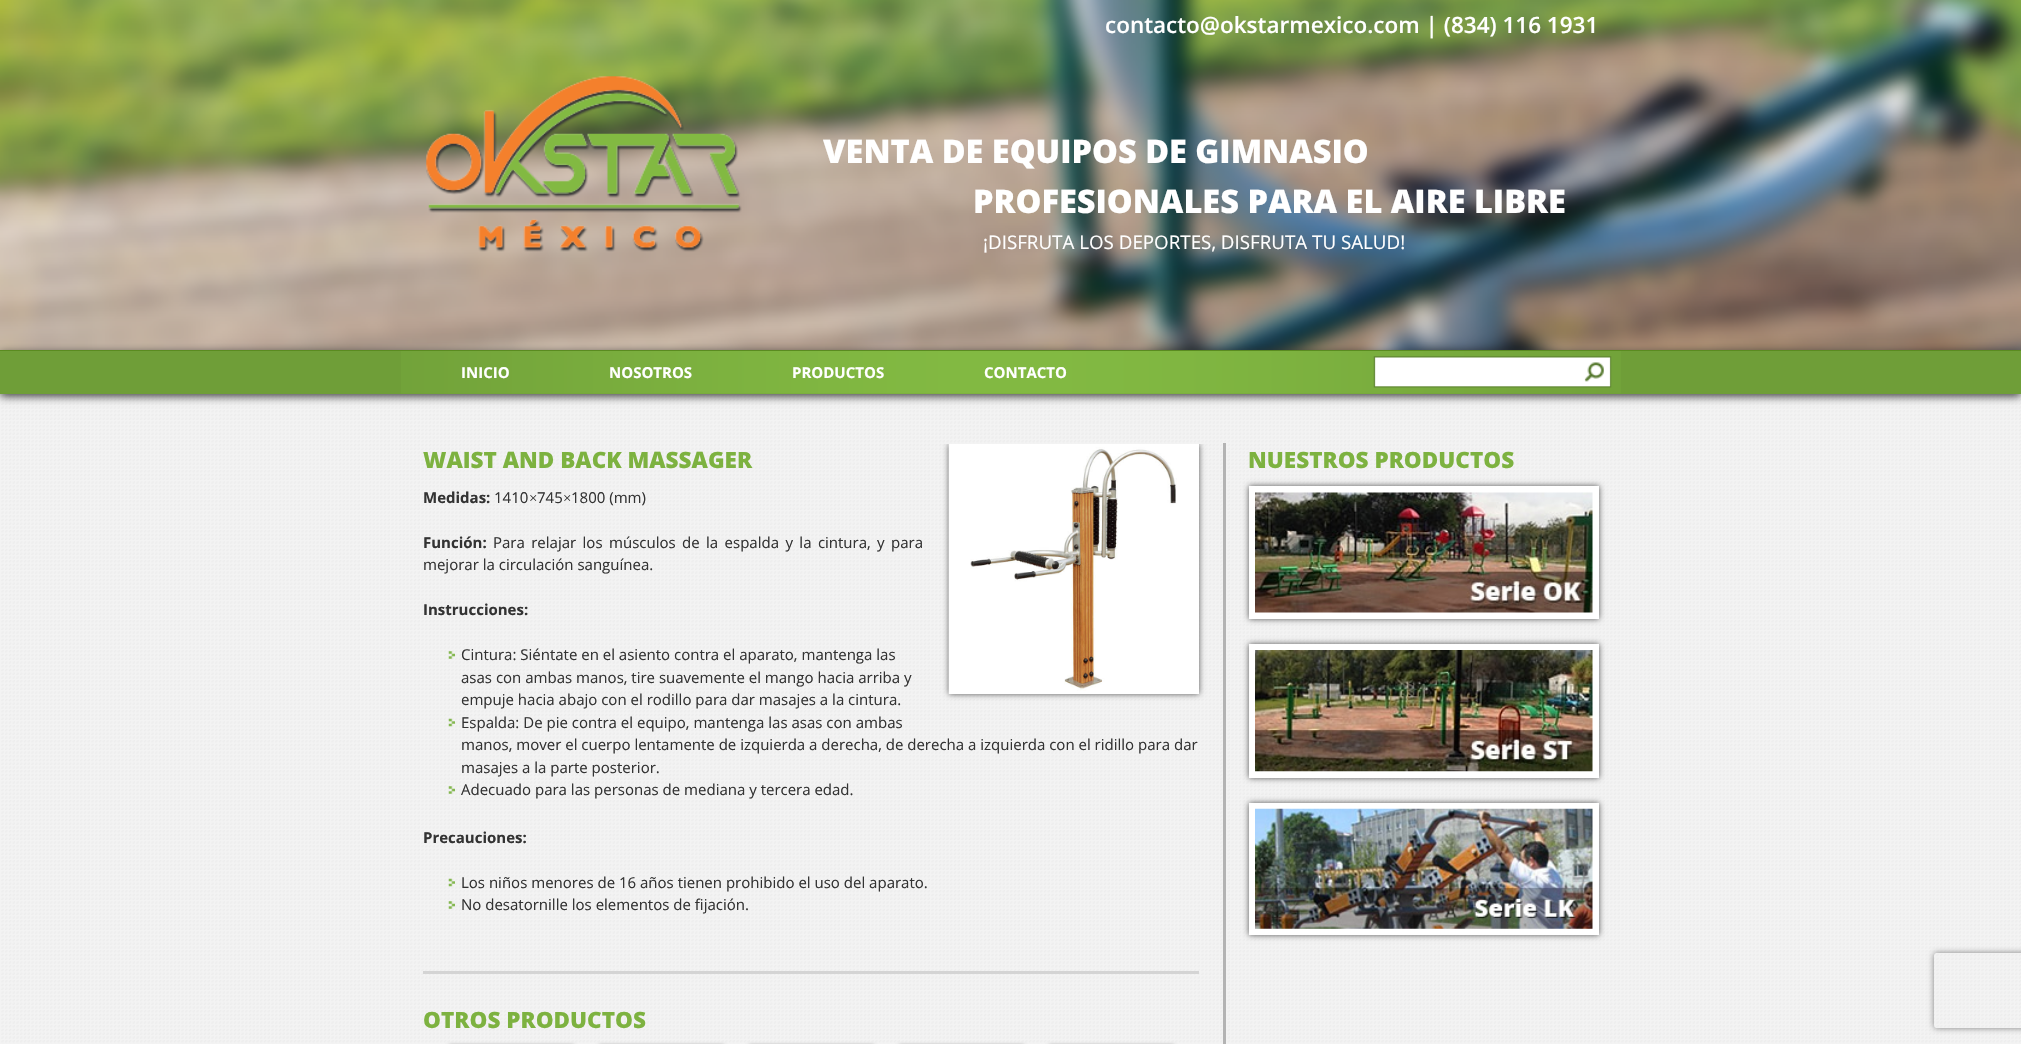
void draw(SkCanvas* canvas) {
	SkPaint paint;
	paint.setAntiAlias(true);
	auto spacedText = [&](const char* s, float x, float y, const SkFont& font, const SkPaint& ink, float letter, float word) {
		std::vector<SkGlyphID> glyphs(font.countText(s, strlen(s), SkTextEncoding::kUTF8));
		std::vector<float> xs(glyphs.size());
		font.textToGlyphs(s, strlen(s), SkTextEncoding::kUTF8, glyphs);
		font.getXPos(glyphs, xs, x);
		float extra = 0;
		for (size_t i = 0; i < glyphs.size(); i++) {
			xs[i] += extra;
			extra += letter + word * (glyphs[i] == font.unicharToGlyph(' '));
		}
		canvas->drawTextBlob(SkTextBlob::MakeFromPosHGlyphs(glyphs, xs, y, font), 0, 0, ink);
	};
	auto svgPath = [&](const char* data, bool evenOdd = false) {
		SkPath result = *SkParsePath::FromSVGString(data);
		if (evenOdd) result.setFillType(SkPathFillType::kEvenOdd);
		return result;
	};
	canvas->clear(0xffffffff);
	canvas->drawImageRect(SkImages::DeferredFromEncodedData(SkData::MakeFromFileName("img1.png")), SkRect::MakeXYWH(0, 394, 2021, 650), SkSamplingOptions());
	canvas->drawImageRect(SkImages::DeferredFromEncodedData(SkData::MakeFromFileName("img2.png")), SkRect::MakeXYWH(0, 0, 2021, 350), SkSamplingOptions());
	SkFont f1(fontMgr->matchFamilyStyle("Open Sans", SkFontStyle(600, SkFontStyle::kNormal_Width, SkFontStyle::kUpright_Slant)), 22.5);
	f1.setSubpixel(true);
	paint.setColor(0xffffffff);
	canvas->drawString("contacto@okstarmexico.com | (834) 116 1931", 1105, 33, f1, paint);
	canvas->drawImageRect(SkImages::DeferredFromEncodedData(SkData::MakeFromFileName("img3.png")), SkRect::MakeXYWH(426, 76, 316, 176), SkSamplingOptions());
	SkFont f2(fontMgr->matchFamilyStyle("Open Sans", SkFontStyle(800, SkFontStyle::kNormal_Width, SkFontStyle::kUpright_Slant)), 32.5);
	f2.setSubpixel(true);
	canvas->drawString("VENTA DE EQUIPOS DE GIMNASIO", 823, 163, f2, paint);
	canvas->drawString("PROFESIONALES PARA EL AIRE LIBRE", 973, 213, f2, paint);
	SkFont f3(fontMgr->matchFamilyStyle("Open Sans", SkFontStyle::Normal()), 18.75);
	f3.setSubpixel(true);
	canvas->drawString("¡DISFRUTA LOS DEPORTES, DISFRUTA TU SALUD!", 983, 249, f3, paint);
	paint.setColor(0xff333333);
	paint.setMaskFilter(SkMaskFilter::MakeBlur(kNormal_SkBlurStyle, 4.5));
	canvas->drawRect(SkRect::MakeXYWH(0, 353, 2021, 43), paint);
	paint.setMaskFilter(nullptr);
	paint.setColor(0xff6f9e38);
	canvas->drawRect(SkRect::MakeXYWH(0, 351, 2021, 43), paint);
	canvas->drawImageRect(SkImages::DeferredFromEncodedData(SkData::MakeFromFileName("img4.png")), SkRect::MakeXYWH(401, 351, 1220, 43), SkSamplingOptions());
	paint.setColor(0xff5a8b20);
	canvas->drawRect(SkRect::MakeXYWH(0, 350, 2021, 1), paint);
	SkFont f4(fontMgr->matchFamilyStyle("Open Sans", SkFontStyle::Bold()), 15);
	f4.setSubpixel(true);
	paint.setColor(0xffffffff);
	canvas->drawString("INICIO", 461, 378, f4, paint);
	canvas->drawString("NOSOTROS", 609, 378, f4, paint);
	canvas->drawString("PRODUCTOS", 792, 378, f4, paint);
	canvas->drawString("CONTACTO", 984, 378, f4, paint);
	canvas->drawImageRect(SkImages::DeferredFromEncodedData(SkData::MakeFromFileName("img5.png")), SkRect::MakeXYWH(1373, 356, 239, 32), SkSamplingOptions());
	canvas->drawImageRect(SkImages::DeferredFromEncodedData(SkData::MakeFromFileName("img6.png")), SkRect::MakeXYWH(1584, 362, 20, 20), SkSamplingOptions());
	paint.setColor(0xffb3b3b3);
	canvas->drawRect(SkRect::MakeXYWH(1223, 443, 3, 601), paint);
	SkFont f5(fontMgr->matchFamilyStyle("Open Sans", SkFontStyle(800, SkFontStyle::kNormal_Width, SkFontStyle::kUpright_Slant)), 22.5);
	f5.setSubpixel(true);
	paint.setColor(0xff7db240);
	canvas->drawString("WAIST AND BACK MASSAGER", 423, 468, f5, paint);
	canvas->save();
	canvas->clipRect(SkRect::MakeXYWH(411, 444, 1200, 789));
	paint.setColor(0xff555555);
	paint.setMaskFilter(SkMaskFilter::MakeBlur(kNormal_SkBlurStyle, 3));
	canvas->drawRect(SkRect::MakeXYWH(949, 444, 250, 250), paint);
	paint.setMaskFilter(nullptr);
	canvas->restore();
	paint.setColor(0xffffffff);
	canvas->drawRect(SkRect::MakeXYWH(949, 444, 250, 250), paint);
	canvas->drawImageRect(SkImages::DeferredFromEncodedData(SkData::MakeFromFileName("img7.png")), SkRect::MakeXYWH(948, 444, 229, 250), SkSamplingOptions());
	paint.setColor(0xff333333);
	canvas->drawString("Medidas:", 423, 503, f4, paint);
	SkFont f6(fontMgr->matchFamilyStyle("Open Sans", SkFontStyle::Normal()), 15);
	f6.setSubpixel(true);
	canvas->drawString("1410", 494, 503, f6, paint);
	SkFont f7(fontMgr->matchFamilyStyle("Liberation Serif", SkFontStyle::Normal()), 15);
	f7.setSubpixel(true);
	canvas->drawString("×", 529, 503, f7, paint);
	canvas->drawString("745", 537, 503, f6, paint);
	canvas->drawString("×", 563, 503, f7, paint);
	canvas->drawString("1800 (mm)", 571, 503, f6, paint);
	canvas->drawString("Función:", 423, 548, f4, paint);
	spacedText("Para relajar los músculos de la espalda y la cintura, y para", 493, 548, f6, paint, 0, 2.5);
	canvas->drawString("mejorar la circulación sanguínea.", 423, 570, f6, paint);
	canvas->drawString("Instrucciones:", 423, 615, f4, paint);
	canvas->drawImageRect(SkImages::DeferredFromEncodedData(SkData::MakeFromFileName("img8.png")), SkRect::MakeXYWH(448, 651, 7, 8), SkSamplingOptions());
	canvas->drawString("Cintura: Siéntate en el asiento contra el aparato, mantenga las", 461, 660, f6, paint);
	canvas->drawString("asas con ambas manos, tire suavemente el mango hacia arriba y", 461, 683, f6, paint);
	canvas->drawString("empuje hacia abajo con el rodillo para dar masajes a la cintura.", 461, 705, f6, paint);
	canvas->drawImageRect(SkImages::DeferredFromEncodedData(SkData::MakeFromFileName("img9.png")), SkRect::MakeXYWH(448, 718, 7, 9), SkSamplingOptions());
	canvas->drawString("Espalda: De pie contra el equipo, mantenga las asas con ambas", 461, 728, f6, paint);
	canvas->drawString("manos, mover el cuerpo lentamente de izquierda a derecha, de derecha a izquierda con el ridillo para dar", 461, 750, f6, paint);
	canvas->drawString("masajes a la parte posterior.", 461, 773, f6, paint);
	canvas->drawImageRect(SkImages::DeferredFromEncodedData(SkData::MakeFromFileName("img8.png")), SkRect::MakeXYWH(448, 786, 7, 8), SkSamplingOptions());
	canvas->drawString("Adecuado para las personas de mediana y tercera edad.", 461, 795, f6, paint);
	canvas->drawString("Precauciones:", 423, 843, f4, paint);
	canvas->drawImageRect(SkImages::DeferredFromEncodedData(SkData::MakeFromFileName("img10.png")), SkRect::MakeXYWH(448, 878, 7, 9), SkSamplingOptions());
	canvas->drawString("Los niños menores de 16 años tienen prohibido el uso del aparato.", 461, 888, f6, paint);
	canvas->drawImageRect(SkImages::DeferredFromEncodedData(SkData::MakeFromFileName("img11.png")), SkRect::MakeXYWH(448, 901, 7, 8), SkSamplingOptions());
	canvas->drawString("No desatornille los elementos de fijación.", 461, 910, f6, paint);
	paint.setColor(0xffd4d4d4);
	canvas->drawRect(SkRect::MakeXYWH(423, 971, 776, 3), paint);
	paint.setColor(0xff7db240);
	canvas->drawString("OTROS PRODUCTOS", 423, 1028, f5, paint);
	paint.setColor(0xff555555);
	paint.setMaskFilter(SkMaskFilter::MakeBlur(kNormal_SkBlurStyle, 2));
	canvas->drawRect(SkRect::MakeXYWH(449, 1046, 125, 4), paint);
	paint.setMaskFilter(nullptr);
	paint.setMaskFilter(SkMaskFilter::MakeBlur(kNormal_SkBlurStyle, 2));
	canvas->drawRect(SkRect::MakeXYWH(599, 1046, 125, 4), paint);
	paint.setMaskFilter(nullptr);
	paint.setMaskFilter(SkMaskFilter::MakeBlur(kNormal_SkBlurStyle, 2));
	canvas->drawRect(SkRect::MakeXYWH(749, 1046, 125, 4), paint);
	paint.setMaskFilter(nullptr);
	paint.setMaskFilter(SkMaskFilter::MakeBlur(kNormal_SkBlurStyle, 2));
	canvas->drawRect(SkRect::MakeXYWH(899, 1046, 125, 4), paint);
	paint.setMaskFilter(nullptr);
	paint.setMaskFilter(SkMaskFilter::MakeBlur(kNormal_SkBlurStyle, 2));
	canvas->drawRect(SkRect::MakeXYWH(1049, 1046, 125, 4), paint);
	paint.setMaskFilter(nullptr);
	paint.setColor(0xff7db240);
	canvas->drawString("NUESTROS PRODUCTOS", 1248, 468, f5, paint);
	paint.setColor(0xff555555);
	paint.setMaskFilter(SkMaskFilter::MakeBlur(kNormal_SkBlurStyle, 3));
	canvas->drawRect(SkRect::MakeXYWH(1249, 486, 350, 133), paint);
	paint.setMaskFilter(nullptr);
	paint.setColor(0xffffffff);
	canvas->drawRect(SkRect::MakeXYWH(1249, 486, 350, 133), paint);
	canvas->drawImageRect(SkImages::DeferredFromEncodedData(SkData::MakeFromFileName("img12.png")), SkRect::MakeXYWH(1255, 492, 338, 121), SkSamplingOptions());
	paint.setColor(0xff555555);
	paint.setMaskFilter(SkMaskFilter::MakeBlur(kNormal_SkBlurStyle, 3));
	canvas->drawRect(SkRect::MakeXYWH(1249, 644, 350, 134), paint);
	paint.setMaskFilter(nullptr);
	paint.setColor(0xffffffff);
	canvas->drawRect(SkRect::MakeXYWH(1249, 644, 350, 134), paint);
	canvas->drawImageRect(SkImages::DeferredFromEncodedData(SkData::MakeFromFileName("img13.png")), SkRect::MakeXYWH(1255, 650, 338, 122), SkSamplingOptions());
	paint.setColor(0xff555555);
	paint.setMaskFilter(SkMaskFilter::MakeBlur(kNormal_SkBlurStyle, 3));
	canvas->drawRect(SkRect::MakeXYWH(1249, 803, 350, 132), paint);
	paint.setMaskFilter(nullptr);
	paint.setColor(0xffffffff);
	canvas->drawRect(SkRect::MakeXYWH(1249, 803, 350, 132), paint);
	canvas->drawImageRect(SkImages::DeferredFromEncodedData(SkData::MakeFromFileName("img14.png")), SkRect::MakeXYWH(1255, 808, 338, 121), SkSamplingOptions());
	canvas->save();
	canvas->clipPath(svgPath("M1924 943H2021V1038H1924ZM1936.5 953H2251.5C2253 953 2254 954 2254 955.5V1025.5C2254 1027 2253 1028 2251.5 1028H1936.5C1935 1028 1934 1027 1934 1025.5V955.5C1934 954 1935 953 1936.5 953Z", true), true);
	paint.setColor(0xff808080);
	paint.setMaskFilter(SkMaskFilter::MakeBlur(kNormal_SkBlurStyle, 3));
	canvas->drawRoundRect(SkRect::MakeXYWH(1934, 953, 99, 75), 2.5, 2.5, paint);
	paint.setMaskFilter(nullptr);
	canvas->restore();
}
